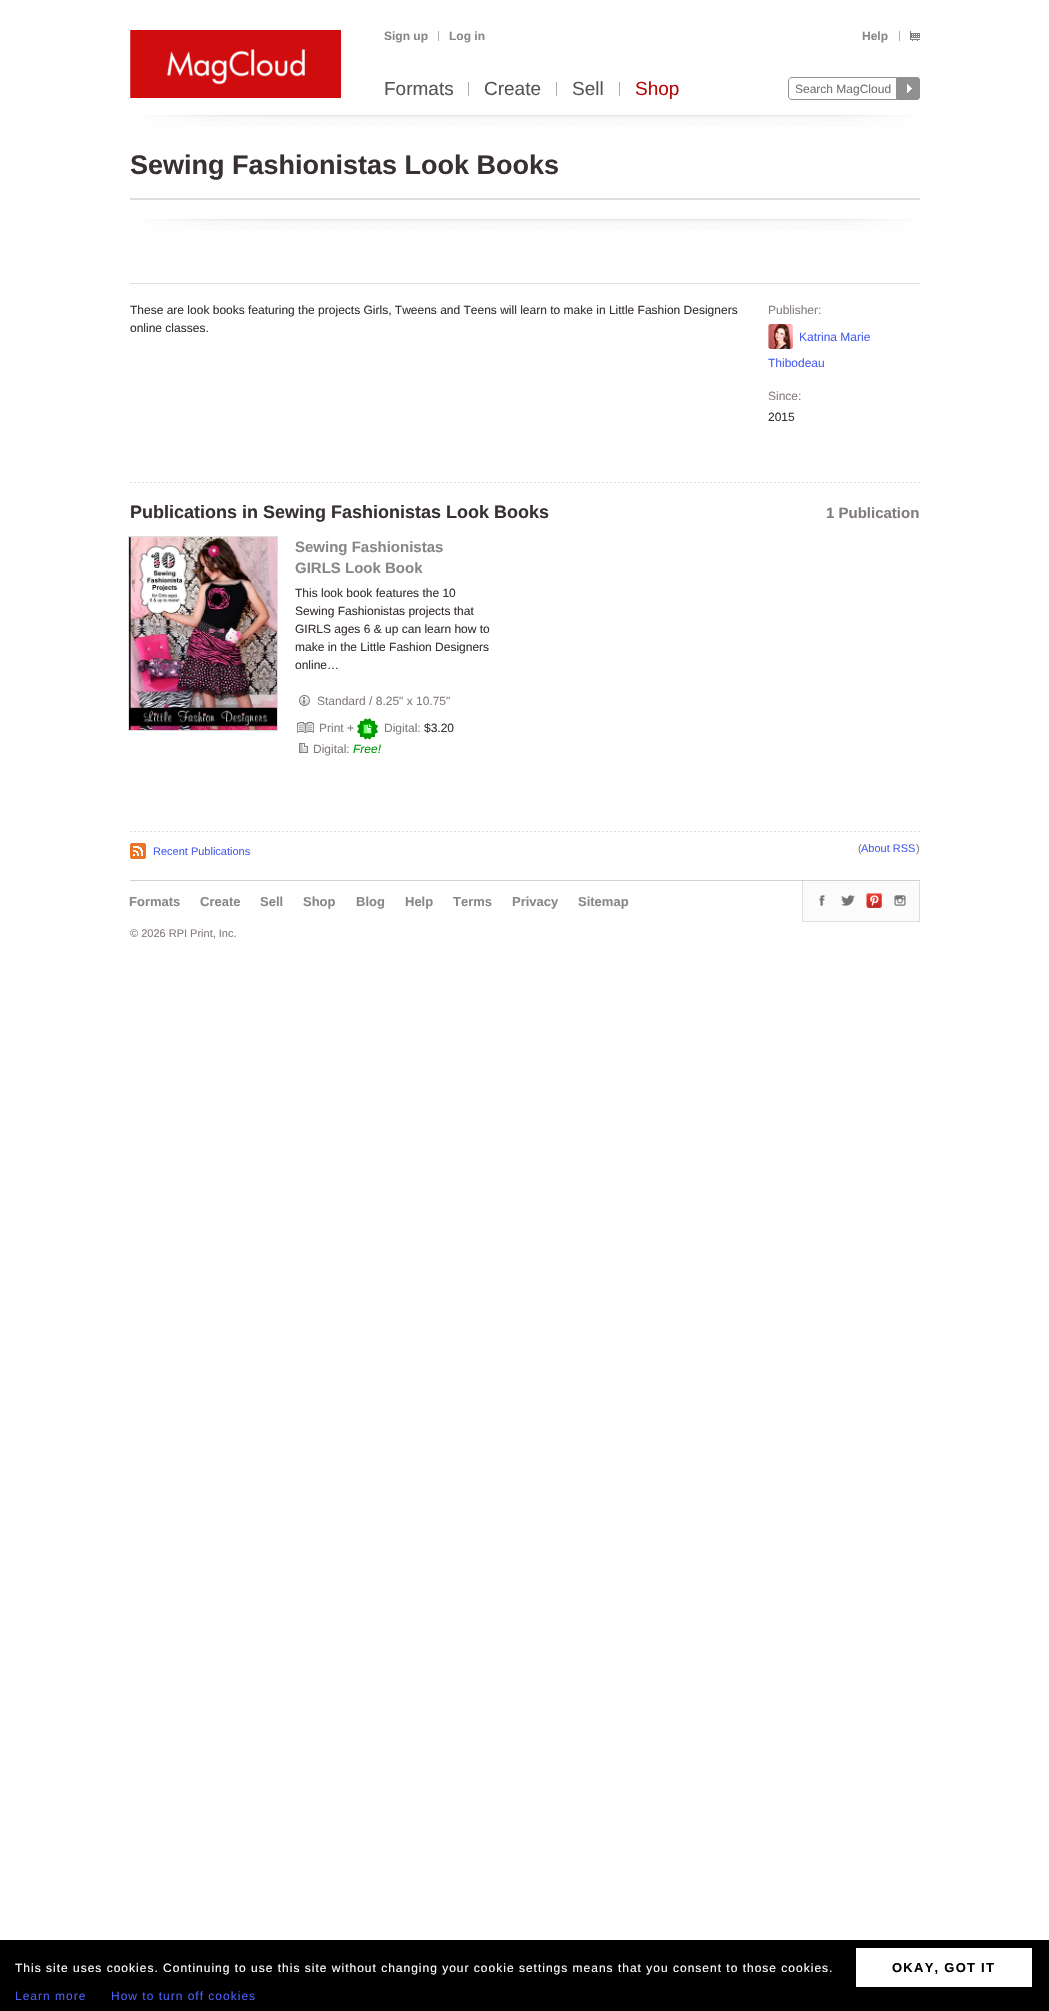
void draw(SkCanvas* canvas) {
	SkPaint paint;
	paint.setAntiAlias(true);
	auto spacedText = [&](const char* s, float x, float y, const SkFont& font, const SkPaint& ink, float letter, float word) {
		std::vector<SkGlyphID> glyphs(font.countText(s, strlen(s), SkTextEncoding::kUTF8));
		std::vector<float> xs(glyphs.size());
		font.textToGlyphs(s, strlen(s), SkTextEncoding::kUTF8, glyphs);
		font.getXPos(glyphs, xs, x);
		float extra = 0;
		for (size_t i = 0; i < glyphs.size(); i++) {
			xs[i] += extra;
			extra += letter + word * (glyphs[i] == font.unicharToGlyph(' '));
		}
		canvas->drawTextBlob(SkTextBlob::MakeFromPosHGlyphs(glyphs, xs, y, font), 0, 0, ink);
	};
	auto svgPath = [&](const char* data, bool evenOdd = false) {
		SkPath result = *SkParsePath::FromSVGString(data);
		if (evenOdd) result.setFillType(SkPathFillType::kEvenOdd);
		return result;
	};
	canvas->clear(0xffffffff);
	paint.setColor(0xffd00d0e);
	canvas->drawRect(SkRect::MakeXYWH(305, 30, 36, 68), paint);
	canvas->drawImageRect(SkImages::DeferredFromEncodedData(SkData::MakeFromFileName("img1.png")), SkRect::MakeXYWH(130, 30, 175, 68), SkSamplingOptions());
	SkFont f1(fontMgr->matchFamilyStyle("Liberation Sans", SkFontStyle::Bold()), 12);
	f1.setSubpixel(true);
	paint.setColor(0xff888888);
	canvas->drawString("Sign up", 384, 40, f1, paint);
	paint.setColor(0xffadadad);
	canvas->drawRect(SkRect::MakeXYWH(438, 31, 1, 10), paint);
	paint.setColor(0xff888888);
	canvas->drawString("Log in", 449, 40, f1, paint);
	canvas->drawString("Help", 862, 40, f1, paint);
	paint.setColor(0xffadadad);
	canvas->drawRect(SkRect::MakeXYWH(899, 31, 1, 10), paint);
	canvas->drawImageRect(SkImages::DeferredFromEncodedData(SkData::MakeFromFileName("img2.png")), SkRect::MakeXYWH(910, 31, 10, 10), SkSamplingOptions());
	SkFont f2(fontMgr->matchFamilyStyle("Liberation Sans", SkFontStyle::Normal()), 19);
	f2.setSubpixel(true);
	paint.setColor(0xff555555);
	canvas->drawString("Formats", 384, 95, f2, paint);
	paint.setColor(0xffadadad);
	canvas->drawRect(SkRect::MakeXYWH(468, 82, 1, 14), paint);
	paint.setColor(0xff555555);
	canvas->drawString("Create", 484, 95, f2, paint);
	paint.setColor(0xffadadad);
	canvas->drawRect(SkRect::MakeXYWH(556, 82, 1, 14), paint);
	paint.setColor(0xff555555);
	canvas->drawString("Sell", 572, 95, f2, paint);
	paint.setColor(0xffadadad);
	canvas->drawRect(SkRect::MakeXYWH(619, 82, 1, 14), paint);
	paint.setColor(0xffb7090a);
	canvas->drawString("Shop", 635, 95, f2, paint);
	paint.setStroke(true);
	paint.setStrokeWidth(1);
	paint.setColor(0xff909090);
	canvas->drawPath(svgPath("M792 77.5H896.5V99.5H792C790 99.5 788.5 98 788.5 96V81C788.5 79 790 77.5 792 77.5Z"), paint);
	SkFont f3(fontMgr->matchFamilyStyle("Liberation Sans", SkFontStyle::Normal()), 12);
	f3.setSubpixel(true);
	paint.setStroke(false);
	paint.setColor(0xff727272);
	canvas->drawString("Search MagCloud", 795, 93, f3, paint);
	canvas->drawImageRect(SkImages::DeferredFromEncodedData(SkData::MakeFromFileName("img3.png")), SkRect::MakeXYWH(897, 77, 23, 23), SkSamplingOptions());
	canvas->drawImageRect(SkImages::DeferredFromEncodedData(SkData::MakeFromFileName("img4.png")), SkRect::MakeXYWH(142, 115, 768, 12), SkSamplingOptions());
	SkFont f4(fontMgr->matchFamilyStyle("Liberation Sans", SkFontStyle::Bold()), 27);
	f4.setSubpixel(true);
	paint.setColor(0xff383131);
	canvas->drawString("Sewing Fashionistas Look Books", 130, 174, f4, paint);
	paint.setColor(0xffdedede);
	canvas->drawRect(SkRect::MakeXYWH(130, 198, 790, 2), paint);
	canvas->drawImageRect(SkImages::DeferredFromEncodedData(SkData::MakeFromFileName("img4.png")), SkRect::MakeXYWH(142, 219, 768, 12), SkSamplingOptions());
	canvas->drawRect(SkRect::MakeXYWH(130, 283, 790, 1), paint);
	paint.setColor(0xff383131);
	canvas->drawString("These are look books featuring the projects Girls, Tweens and Teens will learn to make in Little Fashion Designers", 130, 314, f3, paint);
	canvas->drawString("online classes.", 130, 332, f3, paint);
	paint.setColor(0xff837c7c);
	canvas->drawString("Publisher:", 768, 314, f3, paint);
	canvas->drawImageRect(SkImages::DeferredFromEncodedData(SkData::MakeFromFileName("img5.png")), SkRect::MakeXYWH(768, 324, 25, 25), SkSamplingOptions());
	paint.setColor(0xff485ff0);
	canvas->drawString("Katrina Marie", 799, 341, f3, paint);
	canvas->drawString("Thibodeau", 768, 367, f3, paint);
	paint.setColor(0xff837c7c);
	canvas->drawString("Since:", 768, 400, f3, paint);
	paint.setColor(0xff383131);
	canvas->drawString("2015", 768, 421, f3, paint);
	canvas->drawImageRect(SkImages::DeferredFromEncodedData(SkData::MakeFromFileName("img6.png")), SkRect::MakeXYWH(130, 482, 790, 1), SkSamplingOptions());
	SkFont f5(fontMgr->matchFamilyStyle("Liberation Sans", SkFontStyle::Bold()), 18);
	f5.setSubpixel(true);
	canvas->drawString("Publications in Sewing Fashionistas Look Books", 130, 518, f5, paint);
	SkFont f6(fontMgr->matchFamilyStyle("Liberation Sans", SkFontStyle::Bold()), 15);
	f6.setSubpixel(true);
	paint.setColor(0xff837c7c);
	canvas->drawString("1 Publication", 826, 518, f6, paint);
	paint.setStroke(true);
	paint.setColor(0xffdedede);
	canvas->drawRect(SkRect::MakeXYWH(128.5, 536.5, 149, 194), paint);
	canvas->drawImageRect(SkImages::DeferredFromEncodedData(SkData::MakeFromFileName("img7.png")), SkRect::MakeXYWH(129, 537, 148, 193), SkSamplingOptions());
	paint.setStroke(false);
	paint.setColor(0xff888888);
	canvas->drawString("Sewing Fashionistas", 295, 552, f6, paint);
	canvas->drawString("GIRLS Look Book", 295, 573, f6, paint);
	paint.setColor(0xff383131);
	canvas->drawString("This look book features the 10", 295, 597, f3, paint);
	canvas->drawString("Sewing Fashionistas projects that", 295, 615, f3, paint);
	canvas->drawString("GIRLS ages 6 & up can learn how to", 295, 633, f3, paint);
	canvas->drawString("make in the Little Fashion Designers", 295, 651, f3, paint);
	canvas->drawString("online…", 295, 669, f3, paint);
	canvas->drawImageRect(SkImages::DeferredFromEncodedData(SkData::MakeFromFileName("img8.png")), SkRect::MakeXYWH(299, 695, 11, 11), SkSamplingOptions());
	paint.setColor(0xff837c7c);
	canvas->drawString("Standard / 8.25\" x 10.75\"", 317, 705, f3, paint);
	canvas->drawImageRect(SkImages::DeferredFromEncodedData(SkData::MakeFromFileName("img9.png")), SkRect::MakeXYWH(297, 722, 17, 11), SkSamplingOptions());
	canvas->drawString("Print +", 319, 732, f3, paint);
	canvas->drawImageRect(SkImages::DeferredFromEncodedData(SkData::MakeFromFileName("img10.png")), SkRect::MakeXYWH(357, 718, 21, 22), SkSamplingOptions());
	canvas->drawString("Digital:", 384, 732, f3, paint);
	paint.setColor(0xff383131);
	canvas->drawString("$3.20", 424, 732, f3, paint);
	canvas->drawImageRect(SkImages::DeferredFromEncodedData(SkData::MakeFromFileName("img11.png")), SkRect::MakeXYWH(299, 743, 9, 10), SkSamplingOptions());
	paint.setColor(0xff837c7c);
	canvas->drawString("Digital:", 313, 753, f3, paint);
	SkFont f7(fontMgr->matchFamilyStyle("Liberation Sans", SkFontStyle::Italic()), 12);
	f7.setSubpixel(true);
	paint.setColor(0xff009900);
	canvas->drawString("Free!", 353, 753, f7, paint);
	canvas->drawImageRect(SkImages::DeferredFromEncodedData(SkData::MakeFromFileName("img6.png")), SkRect::MakeXYWH(130, 831, 790, 1), SkSamplingOptions());
	canvas->drawImageRect(SkImages::DeferredFromEncodedData(SkData::MakeFromFileName("img12.png")), SkRect::MakeXYWH(130, 843, 16, 16), SkSamplingOptions());
	SkFont f8(fontMgr->matchFamilyStyle("Liberation Sans", SkFontStyle::Normal()), 11);
	f8.setSubpixel(true);
	paint.setColor(0xff485ff0);
	canvas->drawString("Recent Publications", 153, 855, f8, paint);
	paint.setColor(0xff837c7c);
	canvas->drawString("(", 858, 852, f8, paint);
	paint.setColor(0xff485ff0);
	canvas->drawString("About RSS", 861, 852, f8, paint);
	paint.setColor(0xff837c7c);
	canvas->drawString(")", 916, 852, f8, paint);
	paint.setColor(0xffd1d1d1);
	canvas->drawRect(SkRect::MakeXYWH(130, 880, 790, 1), paint);
	SkFont f9(fontMgr->matchFamilyStyle("Liberation Sans", SkFontStyle::Bold()), 13);
	f9.setSubpixel(true);
	paint.setColor(0xff888888);
	canvas->drawString("Formats", 129, 906, f9, paint);
	canvas->drawString("Create", 200, 906, f9, paint);
	canvas->drawString("Sell", 260, 906, f9, paint);
	canvas->drawString("Shop", 303, 906, f9, paint);
	canvas->drawString("Blog", 356, 906, f9, paint);
	canvas->drawString("Help", 405, 906, f9, paint);
	canvas->drawString("Terms", 453, 906, f9, paint);
	canvas->drawString("Privacy", 512, 906, f9, paint);
	canvas->drawString("Sitemap", 578, 906, f9, paint);
	paint.setColor(0xfffbfbfb);
	canvas->drawRect(SkRect::MakeXYWH(803, 881, 116, 40), paint);
	paint.setColor(0xffdedede);
	canvas->drawRect(SkRect::MakeXYWH(919, 881, 1, 41), paint);
	canvas->drawRect(SkRect::MakeXYWH(802, 921, 118, 1), paint);
	canvas->drawRect(SkRect::MakeXYWH(802, 881, 1, 41), paint);
	canvas->drawImageRect(SkImages::DeferredFromEncodedData(SkData::MakeFromFileName("img13.png")), SkRect::MakeXYWH(819, 895, 6, 11), SkSamplingOptions());
	canvas->drawImageRect(SkImages::DeferredFromEncodedData(SkData::MakeFromFileName("img14.png")), SkRect::MakeXYWH(841, 895, 14, 11), SkSamplingOptions());
	canvas->drawImageRect(SkImages::DeferredFromEncodedData(SkData::MakeFromFileName("img15.png")), SkRect::MakeXYWH(866, 893, 16, 15), SkSamplingOptions());
	canvas->drawImageRect(SkImages::DeferredFromEncodedData(SkData::MakeFromFileName("img16.png")), SkRect::MakeXYWH(894, 895, 12, 11), SkSamplingOptions());
	paint.setColor(0xff837c7c);
	canvas->drawString("© 2026 RPI Print, Inc.", 130, 937, f8, paint);
	paint.setColor(0xff000000);
	canvas->drawRect(SkRect::MakeXYWH(0, 1940, 1049, 71), paint);
	paint.setColor(0xffffffff);
	spacedText("This site uses cookies. Continuing to use this site without changing your cookie settings means that you consent to those cookies.", 15, 1972, f3, paint, 1, 0);
	paint.setColor(0xff485ff0);
	spacedText("Learn more", 15, 2000, f3, paint, 1, 0);
	spacedText("How to turn off cookies", 111, 2000, f3, paint, 1, 0);
	paint.setColor(0xffffffff);
	canvas->drawRect(SkRect::MakeXYWH(856, 1948, 176, 39), paint);
	paint.setColor(0xff000000);
	spacedText("OKAY, GOT IT", 892, 1972, f9, paint, 1.25, 0);
}
